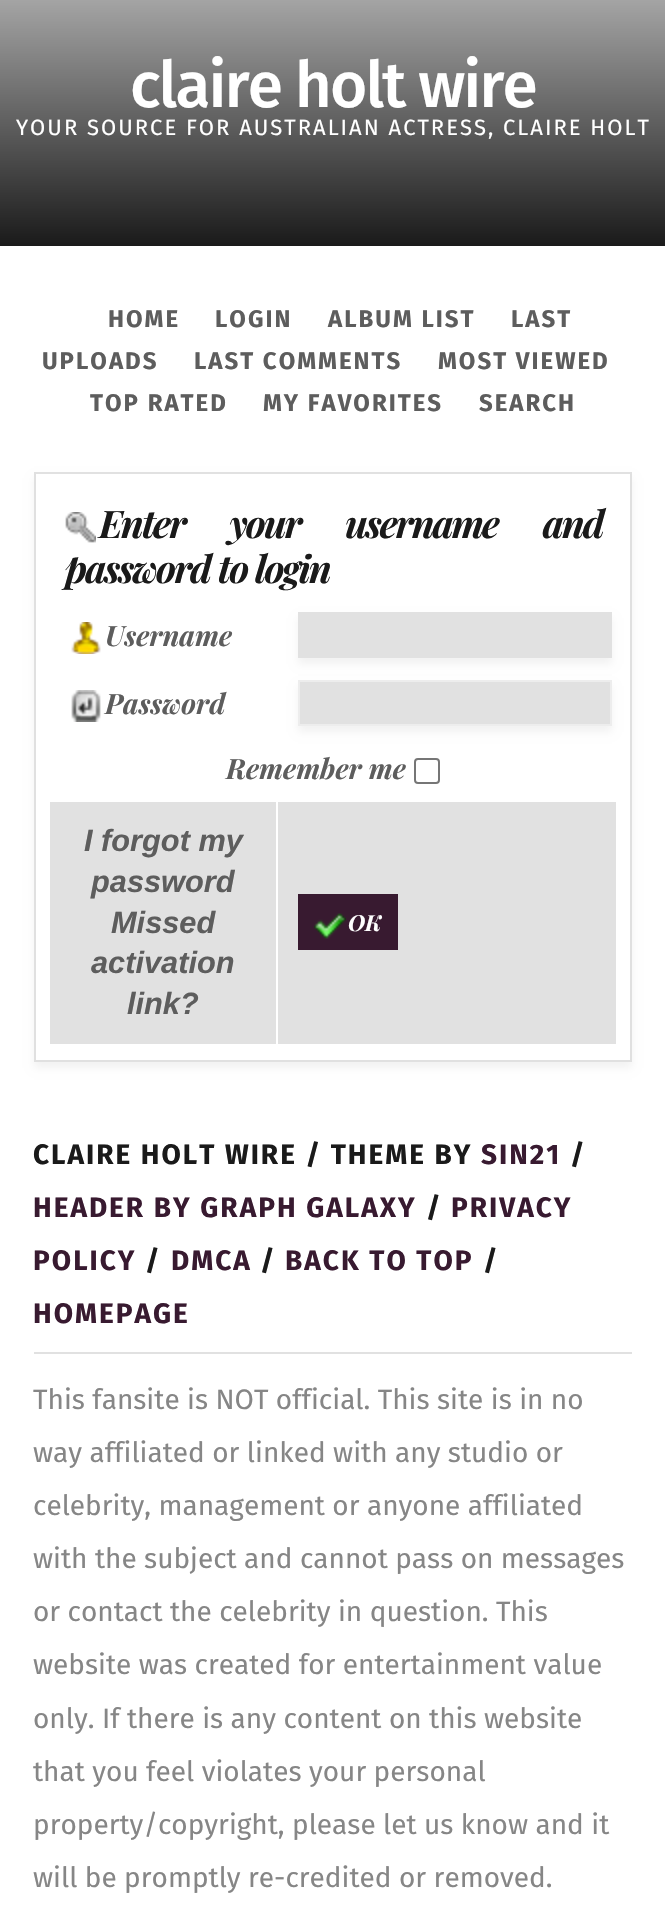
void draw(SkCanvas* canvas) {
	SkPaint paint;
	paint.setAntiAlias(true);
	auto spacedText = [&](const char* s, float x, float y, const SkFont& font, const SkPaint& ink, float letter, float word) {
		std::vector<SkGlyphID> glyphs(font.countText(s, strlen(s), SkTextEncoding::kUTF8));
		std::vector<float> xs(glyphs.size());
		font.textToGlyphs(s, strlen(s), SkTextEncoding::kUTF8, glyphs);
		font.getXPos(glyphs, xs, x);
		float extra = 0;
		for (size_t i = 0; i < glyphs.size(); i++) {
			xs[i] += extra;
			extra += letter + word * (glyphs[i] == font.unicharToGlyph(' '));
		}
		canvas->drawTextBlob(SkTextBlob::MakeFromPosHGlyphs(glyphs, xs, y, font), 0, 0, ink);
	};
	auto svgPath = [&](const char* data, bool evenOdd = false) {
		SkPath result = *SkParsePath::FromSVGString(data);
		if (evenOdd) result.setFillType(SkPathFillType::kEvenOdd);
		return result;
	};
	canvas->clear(0xffffffff);
	{
		const SkColor colors[] = {0xffbbbbbb, 0xffbababa, 0xff1a1a1a};
		const float stops[] = {0, 0.01, 1};
		const SkPoint ends[] = {{333, -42}, {333, 246}};
		paint.setShader(SkGradientShader::MakeLinear(ends, colors, stops, 3, SkTileMode::kClamp));
		paint.setAlpha(255);
	}
	canvas->drawRect(SkRect::MakeXYWH(0, 0, 665, 246), paint);
	SkFont f1(fontMgr->matchFamilyStyle("Fira Sans", SkFontStyle(500, SkFontStyle::kNormal_Width, SkFontStyle::kUpright_Slant)), 64);
	f1.setSubpixel(true);
	paint.setShader(nullptr);
	paint.setColor(0xffffffff);
	spacedText("claire holt wire", 130, 107, f1, paint, -2, 0);
	SkFont f2(fontMgr->matchFamilyStyle("Fira Sans", SkFontStyle::Normal()), 22);
	f2.setSubpixel(true);
	spacedText("YOUR SOURCE FOR AUSTRALIAN ACTRESS, CLAIRE HOLT", 16, 135, f2, paint, 2, 0);
	SkFont f3(fontMgr->matchFamilyStyle("Fira Sans", SkFontStyle::Bold()), 24);
	f3.setSubpixel(true);
	paint.setColor(0xff5d5d5d);
	spacedText("HOME", 108, 327, f3, paint, 2, 0);
	spacedText("LOGIN", 215, 327, f3, paint, 2, 0);
	spacedText("ALBUM LIST", 328, 327, f3, paint, 2, 0);
	spacedText("LAST", 511, 327, f3, paint, 2, 0);
	spacedText("UPLOADS", 42, 369, f3, paint, 2, 0);
	spacedText("LAST COMMENTS", 194, 369, f3, paint, 2, 0);
	spacedText("MOST VIEWED", 438, 369, f3, paint, 2, 0);
	spacedText("TOP RATED", 90, 411, f3, paint, 2, 0);
	spacedText("MY FAVORITES", 263, 411, f3, paint, 2, 0);
	spacedText("SEARCH", 479, 411, f3, paint, 2, 0);
	canvas->save();
	canvas->clipPath(svgPath("M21 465H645V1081H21ZM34 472H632V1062H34Z", true), true);
	paint.setColor(0x0d000000);
	paint.setMaskFilter(SkMaskFilter::MakeBlur(kNormal_SkBlurStyle, 4));
	canvas->drawRect(SkRect::MakeXYWH(34, 478, 598, 590), paint);
	paint.setMaskFilter(nullptr);
	canvas->restore();
	paint.setColor(0xffe1e1e1);
	canvas->drawRect(SkRect::MakeXYWH(34, 472, 598, 2), paint);
	paint.setColor(0xffe0e0e0);
	canvas->drawRect(SkRect::MakeXYWH(630, 472, 2, 590), paint);
	canvas->drawRect(SkRect::MakeXYWH(34, 1060, 598, 2), paint);
	canvas->drawRect(SkRect::MakeXYWH(34, 472, 2, 590), paint);
	canvas->drawImageRect(SkImages::DeferredFromEncodedData(SkData::MakeFromFileName("img1.png")), SkRect::MakeXYWH(65, 512, 31, 31), SkSamplingOptions());
	SkFont f4(fontMgr->matchFamilyStyle("Playfair Display", SkFontStyle::BoldItalic()), 38);
	f4.setSubpixel(true);
	paint.setColor(0xff1a1a1a);
	spacedText("Enter your username and", 99, 538, f4, paint, -2, 37);
	spacedText("password to login", 65, 583, f4, paint, -2, 0);
	canvas->drawImageRect(SkImages::DeferredFromEncodedData(SkData::MakeFromFileName("img2.png")), SkRect::MakeXYWH(71, 622, 30, 32), SkSamplingOptions());
	SkFont f5(fontMgr->matchFamilyStyle("Playfair Display", SkFontStyle::BoldItalic()), 28);
	f5.setSubpixel(true);
	paint.setColor(0xff5d5d5d);
	canvas->drawString("Username", 105, 646, f5, paint);
	paint.setColor(0x0d000000);
	paint.setMaskFilter(SkMaskFilter::MakeBlur(kNormal_SkBlurStyle, 4));
	canvas->drawRect(SkRect::MakeXYWH(298, 618, 314, 46), paint);
	paint.setMaskFilter(nullptr);
	paint.setColor(0xffe1e1e1);
	canvas->drawRect(SkRect::MakeXYWH(298, 612, 314, 46), paint);
	canvas->drawImageRect(SkImages::DeferredFromEncodedData(SkData::MakeFromFileName("img3.png")), SkRect::MakeXYWH(71, 690, 30, 32), SkSamplingOptions());
	paint.setColor(0xff5d5d5d);
	canvas->drawString("Password", 105, 714, f5, paint);
	paint.setColor(0x0d000000);
	paint.setMaskFilter(SkMaskFilter::MakeBlur(kNormal_SkBlurStyle, 4));
	canvas->drawRect(SkRect::MakeXYWH(298, 686, 314, 46), paint);
	paint.setMaskFilter(nullptr);
	paint.setColor(0xffe1e1e1);
	canvas->drawRect(SkRect::MakeXYWH(299, 681, 312, 44), paint);
	paint.setStroke(true);
	paint.setStrokeWidth(2);
	paint.setColor(0xffededed);
	canvas->drawRect(SkRect::MakeXYWH(299, 681, 312, 44), paint);
	paint.setStroke(false);
	paint.setColor(0xff5d5d5d);
	canvas->drawString("Remember me", 226, 779, f5, paint);
	paint.setStroke(true);
	paint.setColor(0xff767676);
	canvas->drawRoundRect(SkRect::MakeXYWH(415, 759, 24, 24), 3, 3, paint);
	paint.setStroke(false);
	paint.setColor(0xffe1e1e1);
	canvas->drawRect(SkRect::MakeXYWH(50, 802, 226, 242), paint);
	SkFont f6(fontMgr->matchFamilyStyle("Liberation Sans", SkFontStyle::BoldItalic()), 30.75);
	f6.setSubpixel(true);
	paint.setColor(0xff5d5d5d);
	canvas->drawString("I forgot my", 84, 851, f6, paint);
	canvas->drawString("password", 91, 892, f6, paint);
	canvas->drawString("Missed", 111, 933, f6, paint);
	canvas->drawString("activation", 91, 973, f6, paint);
	canvas->drawString("link?", 127, 1014, f6, paint);
	paint.setColor(0xffe1e1e1);
	canvas->drawRect(SkRect::MakeXYWH(278, 802, 338, 242), paint);
	paint.setColor(0xff381a30);
	canvas->drawRect(SkRect::MakeXYWH(298, 894, 100, 56), paint);
	canvas->drawImageRect(SkImages::DeferredFromEncodedData(SkData::MakeFromFileName("img4.png")), SkRect::MakeXYWH(314, 913, 32, 26), SkSamplingOptions());
	SkFont f7(fontMgr->matchFamilyStyle("Playfair Display", SkFontStyle::BoldItalic()), 22);
	f7.setSubpixel(true);
	paint.setColor(0xffffffff);
	canvas->drawString("OK", 348, 931, f7, paint);
	SkFont f8(fontMgr->matchFamilyStyle("Fira Sans", SkFontStyle::Bold()), 28);
	f8.setSubpixel(true);
	paint.setColor(0xff1a1a1a);
	spacedText("CLAIRE HOLT WIRE / THEME BY", 33, 1164, f8, paint, 2, 0);
	paint.setColor(0xff381a30);
	spacedText("SIN21", 481, 1164, f8, paint, 2, 0);
	paint.setColor(0xff1a1a1a);
	spacedText("/", 570, 1164, f8, paint, 2, 0);
	paint.setColor(0xff381a30);
	spacedText("HEADER BY GRAPH GALAXY", 33, 1217, f8, paint, 2, 0);
	paint.setColor(0xff1a1a1a);
	spacedText("/", 426, 1217, f8, paint, 2, 0);
	paint.setColor(0xff381a30);
	spacedText("PRIVACY", 451, 1217, f8, paint, 2, 0);
	spacedText("POLICY", 33, 1270, f8, paint, 2, 0);
	paint.setColor(0xff1a1a1a);
	spacedText("/", 145, 1270, f8, paint, 2, 0);
	paint.setColor(0xff381a30);
	spacedText("DMCA", 171, 1270, f8, paint, 2, 0);
	paint.setColor(0xff1a1a1a);
	spacedText("/", 260, 1270, f8, paint, 2, 0);
	paint.setColor(0xff381a30);
	spacedText("BACK TO TOP", 285, 1270, f8, paint, 2, 0);
	paint.setColor(0xff1a1a1a);
	spacedText("/", 483, 1270, f8, paint, 2, 0);
	paint.setColor(0xff381a30);
	spacedText("HOMEPAGE", 33, 1323, f8, paint, 2, 0);
	paint.setColor(0xffe1e1e1);
	canvas->drawRect(SkRect::MakeXYWH(34, 1352, 598, 2), paint);
	SkFont f9(fontMgr->matchFamilyStyle("Fira Sans", SkFontStyle::Normal()), 28);
	f9.setSubpixel(true);
	paint.setColor(0xff868686);
	canvas->drawString("This fansite is NOT official. This site is in no", 33, 1409, f9, paint);
	canvas->drawString("way affiliated or linked with any studio or", 33, 1462, f9, paint);
	canvas->drawString("celebrity, management or anyone affiliated", 33, 1515, f9, paint);
	canvas->drawString("with the subject and cannot pass on messages", 33, 1568, f9, paint);
	canvas->drawString("or contact the celebrity in question. This", 33, 1621, f9, paint);
	canvas->drawString("website was created for entertainment value", 33, 1674, f9, paint);
	canvas->drawString("only. If there is any content on this website", 33, 1728, f9, paint);
	canvas->drawString("that you feel violates your personal", 33, 1781, f9, paint);
	canvas->drawString("property/copyright, please let us know and it", 33, 1834, f9, paint);
	canvas->drawString("will be promptly re-credited or removed.", 33, 1887, f9, paint);
}
